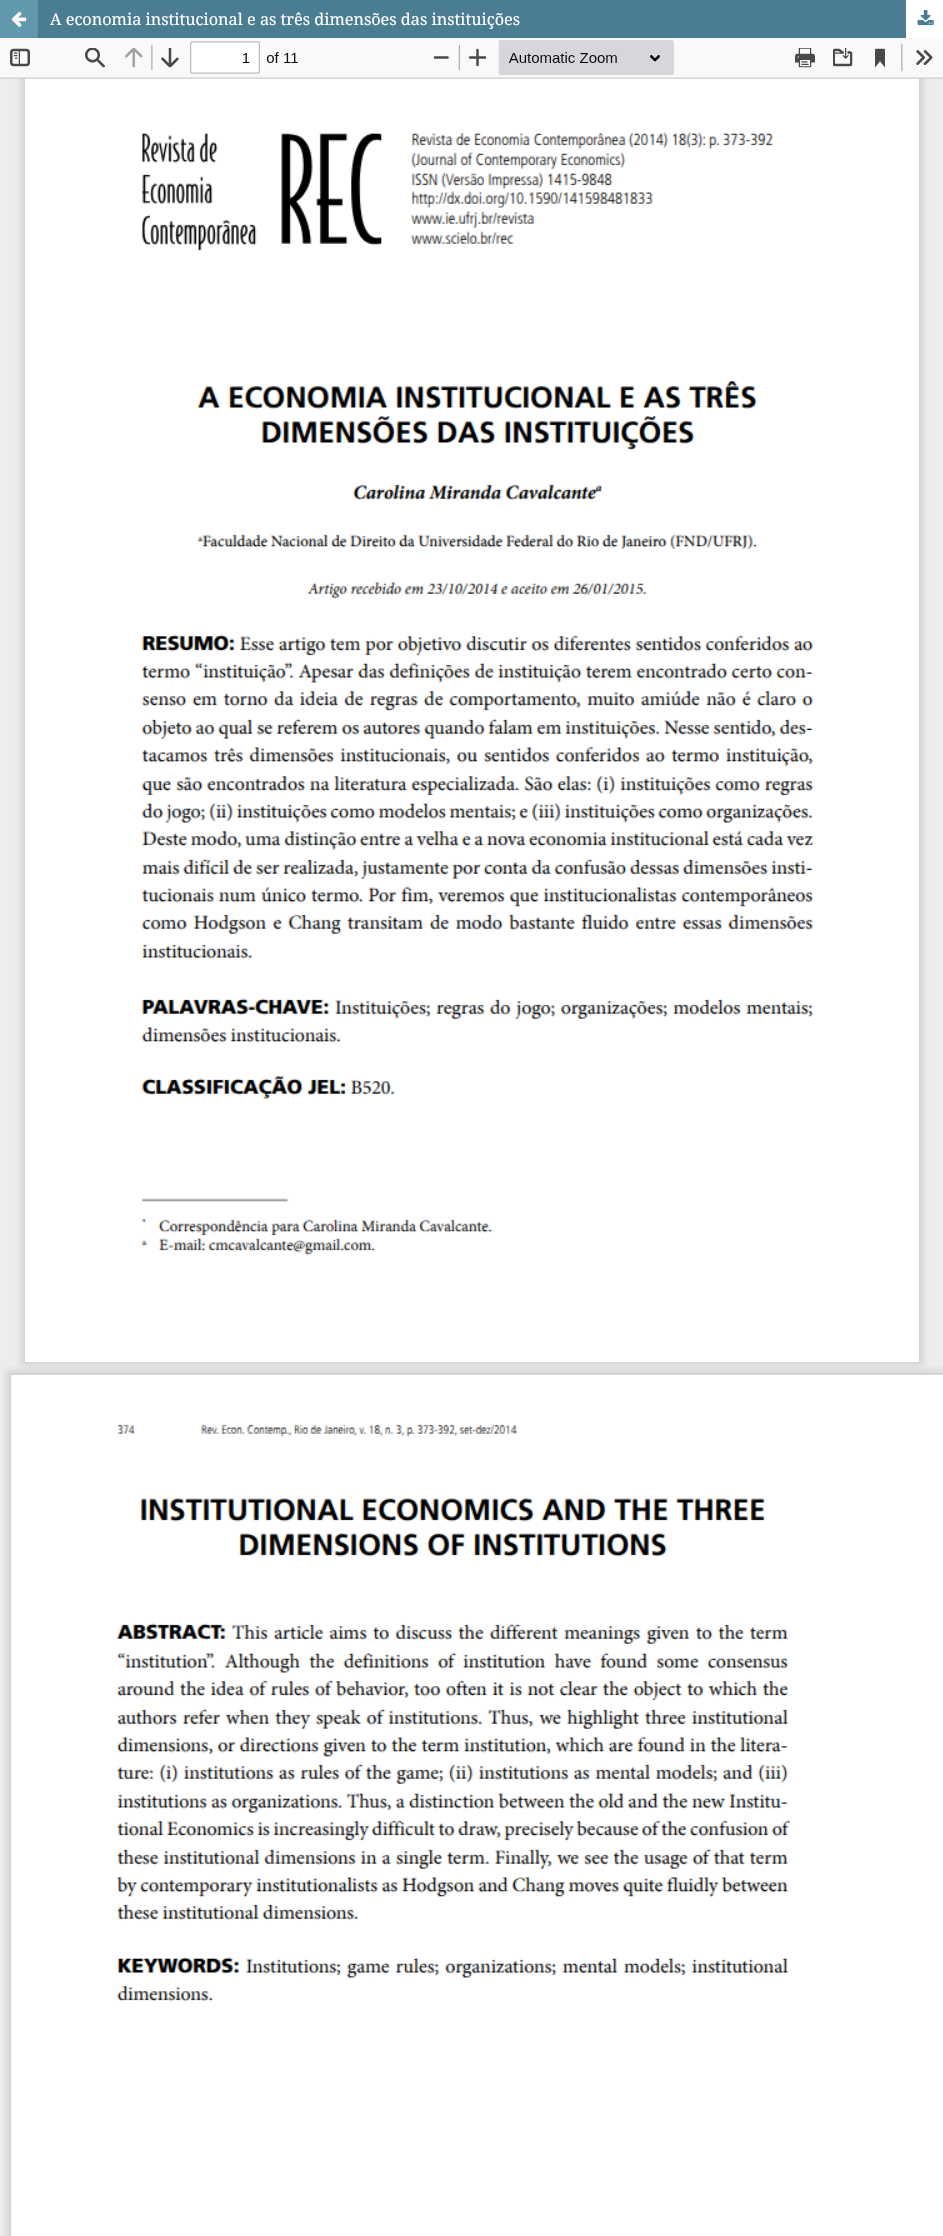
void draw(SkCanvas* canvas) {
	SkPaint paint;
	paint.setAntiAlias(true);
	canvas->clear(0xffffffff);
	paint.setColor(0xff4b7d92);
	canvas->drawRect(SkRect::MakeXYWH(38, 0, 868, 38), paint);
	paint.setColor(0xff6298ae);
	canvas->drawRect(SkRect::MakeXYWH(0, 0, 38, 38), paint);
	canvas->drawImageRect(SkImages::DeferredFromEncodedData(SkData::MakeFromFileName("img1.png")), SkRect::MakeXYWH(11, 11, 16, 16), SkSamplingOptions());
	SkFont f1(fontMgr->matchFamilyStyle("Noto Serif", SkFontStyle::Normal()), 16.25);
	f1.setSubpixel(true);
	paint.setColor(0xffffffff);
	canvas->drawString("A economia institucional e as três dimensões das instituições", 50, 25, f1, paint);
	canvas->drawImageRect(SkImages::DeferredFromEncodedData(SkData::MakeFromFileName("img2.png")), SkRect::MakeXYWH(917, 10, 17, 15), SkSamplingOptions());
	canvas->drawImageRect(SkImages::DeferredFromEncodedData(SkData::MakeFromFileName("img3.png")), SkRect::MakeXYWH(0, 38, 943, 2198), SkSamplingOptions());
}
